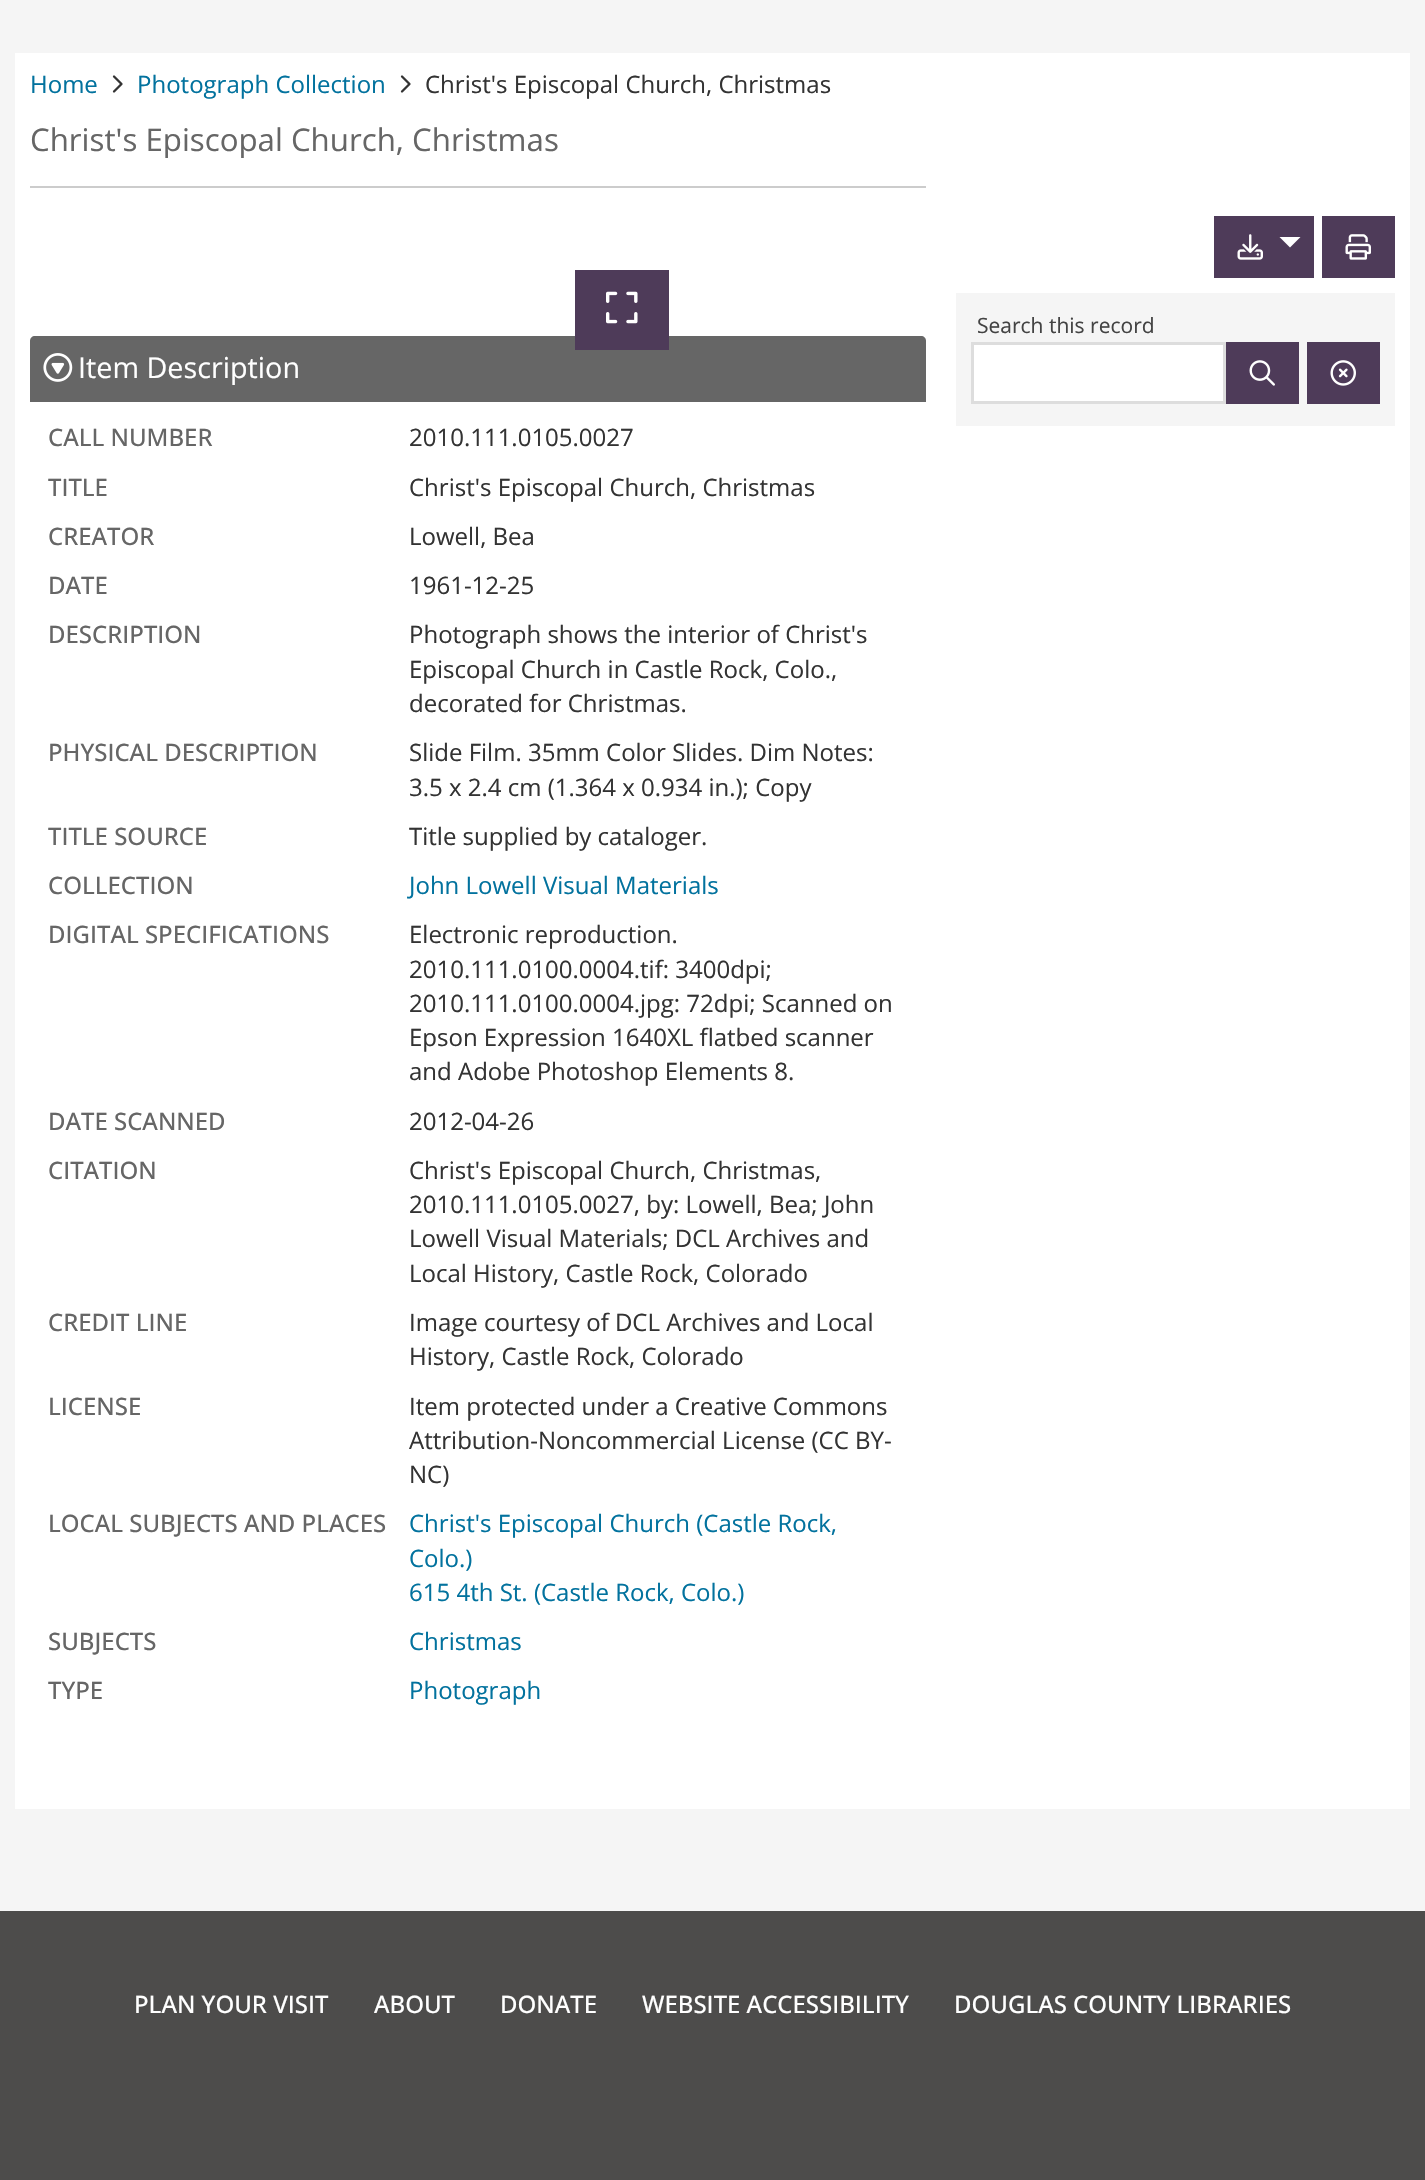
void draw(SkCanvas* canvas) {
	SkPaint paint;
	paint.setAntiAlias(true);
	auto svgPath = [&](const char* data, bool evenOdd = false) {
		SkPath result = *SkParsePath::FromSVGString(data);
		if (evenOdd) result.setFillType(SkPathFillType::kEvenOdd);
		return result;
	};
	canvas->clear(0xfff5f5f5);
	paint.setColor(0xffffffff);
	canvas->drawRect(SkRect::MakeXYWH(15, 53, 1395, 1756), paint);
	SkFont f1(fontMgr->matchFamilyStyle("Open Sans", SkFontStyle::Normal()), 24);
	f1.setSubpixel(true);
	paint.setColor(0xff02729e);
	canvas->drawString("Home", 30, 93, f1, paint);
	canvas->drawImageRect(SkImages::DeferredFromEncodedData(SkData::MakeFromFileName("img1.png")), SkRect::MakeXYWH(112, 75, 11, 18), SkSamplingOptions());
	canvas->drawString("Photograph Collection", 137, 93, f1, paint);
	canvas->drawImageRect(SkImages::DeferredFromEncodedData(SkData::MakeFromFileName("img1.png")), SkRect::MakeXYWH(400, 75, 11, 18), SkSamplingOptions());
	paint.setColor(0xff333333);
	canvas->drawString("Christ's Episcopal Church, Christmas", 425, 93, f1, paint);
	paint.setColor(0xffcccccc);
	canvas->drawRect(SkRect::MakeXYWH(30, 186, 896, 2), paint);
	canvas->save();
	canvas->clipRect(SkRect::MakeXYWH(30, 123, 896, 35));
	SkFont f2(fontMgr->matchFamilyStyle("Open Sans", SkFontStyle::Normal()), 31.25);
	f2.setSubpixel(true);
	paint.setColor(0xff666666);
	canvas->drawString("Christ's Episcopal Church, Christmas", 30, 151, f2, paint);
	canvas->restore();
	paint.setColor(0xff4e3b59);
	canvas->drawRect(SkRect::MakeXYWH(1214, 216, 100, 62), paint);
	canvas->drawImageRect(SkImages::DeferredFromEncodedData(SkData::MakeFromFileName("img2.png")), SkRect::MakeXYWH(1237, 234, 26, 26), SkSamplingOptions());
	paint.setColor(0xffffffff);
	canvas->drawPath(svgPath("M1279.5 237H1300.5L1290 247.5Z"), paint);
	paint.setColor(0xff4e3b59);
	canvas->drawRect(SkRect::MakeXYWH(1322, 216, 73, 62), paint);
	canvas->drawImageRect(SkImages::DeferredFromEncodedData(SkData::MakeFromFileName("img3.png")), SkRect::MakeXYWH(1345, 234, 26, 26), SkSamplingOptions());
	paint.setColor(0xfff5f5f5);
	canvas->drawRect(SkRect::MakeXYWH(956, 293, 439, 133), paint);
	SkFont f3(fontMgr->matchFamilyStyle("Open Sans", SkFontStyle::Normal()), 21);
	f3.setSubpixel(true);
	paint.setColor(0xff434343);
	canvas->drawString("Search this record", 977, 333, f3, paint);
	paint.setColor(0xffffffff);
	canvas->drawRect(SkRect::MakeXYWH(972.5, 343.5, 252, 59), paint);
	paint.setStroke(true);
	paint.setStrokeWidth(3);
	paint.setColor(0xffdddddd);
	canvas->drawRect(SkRect::MakeXYWH(972.5, 343.5, 252, 59), paint);
	paint.setStroke(false);
	paint.setColor(0xff4e3b59);
	canvas->drawRect(SkRect::MakeXYWH(1226, 342, 73, 62), paint);
	canvas->drawImageRect(SkImages::DeferredFromEncodedData(SkData::MakeFromFileName("img4.png")), SkRect::MakeXYWH(1249, 360, 26, 26), SkSamplingOptions());
	canvas->drawRect(SkRect::MakeXYWH(1307, 342, 73, 62), paint);
	canvas->drawImageRect(SkImages::DeferredFromEncodedData(SkData::MakeFromFileName("img5.png")), SkRect::MakeXYWH(1330, 360, 26, 26), SkSamplingOptions());
	paint.setColor(0xff666666);
	canvas->drawPath(svgPath("M35 336H921C924 336 926 338 926 341V402H30V341C30 338 32 336 35 336Z"), paint);
	paint.setColor(0xff4e3b59);
	canvas->drawRect(SkRect::MakeXYWH(575, 270, 94, 80), paint);
	canvas->drawImageRect(SkImages::DeferredFromEncodedData(SkData::MakeFromFileName("img6.png")), SkRect::MakeXYWH(606, 291, 32, 33), SkSamplingOptions());
	canvas->drawImageRect(SkImages::DeferredFromEncodedData(SkData::MakeFromFileName("img7.png")), SkRect::MakeXYWH(43, 353, 30, 29), SkSamplingOptions());
	SkFont f4(fontMgr->matchFamilyStyle("Open Sans", SkFontStyle::Normal()), 28.75);
	f4.setSubpixel(true);
	paint.setColor(0xffffffff);
	canvas->drawString("Item Description", 78, 378, f4, paint);
	SkFont f5(fontMgr->matchFamilyStyle("Open Sans", SkFontStyle(500, SkFontStyle::kNormal_Width, SkFontStyle::kUpright_Slant)), 24);
	f5.setSubpixel(true);
	paint.setColor(0xff666666);
	canvas->drawString("CALL NUMBER", 48, 446, f5, paint);
	paint.setColor(0xff333333);
	canvas->drawString("2010.111.0105.0027", 409, 446, f1, paint);
	paint.setColor(0xff666666);
	canvas->drawString("TITLE", 48, 496, f5, paint);
	paint.setColor(0xff333333);
	canvas->drawString("Christ's Episcopal Church, Christmas", 409, 496, f1, paint);
	paint.setColor(0xff666666);
	canvas->drawString("CREATOR", 48, 545, f5, paint);
	paint.setColor(0xff333333);
	canvas->drawString("Lowell, Bea", 409, 545, f1, paint);
	paint.setColor(0xff666666);
	canvas->drawString("DATE", 48, 594, f5, paint);
	paint.setColor(0xff333333);
	canvas->drawString("1961-12-25", 409, 594, f1, paint);
	paint.setColor(0xff666666);
	canvas->drawString("DESCRIPTION", 48, 643, f5, paint);
	paint.setColor(0xff333333);
	canvas->drawString("Photograph shows the interior of Christ's", 409, 643, f1, paint);
	canvas->drawString("Episcopal Church in Castle Rock, Colo.,", 409, 678, f1, paint);
	canvas->drawString("decorated for Christmas.", 409, 712, f1, paint);
	paint.setColor(0xff666666);
	canvas->drawString("PHYSICAL DESCRIPTION", 48, 761, f5, paint);
	paint.setColor(0xff333333);
	canvas->drawString("Slide Film. 35mm Color Slides. Dim Notes:", 409, 761, f1, paint);
	canvas->drawString("3.5 x 2.4 cm (1.364 x 0.934 in.); Copy", 409, 796, f1, paint);
	paint.setColor(0xff666666);
	canvas->drawString("TITLE SOURCE", 48, 845, f5, paint);
	paint.setColor(0xff333333);
	canvas->drawString("Title supplied by cataloger.", 409, 845, f1, paint);
	paint.setColor(0xff666666);
	canvas->drawString("COLLECTION", 48, 894, f5, paint);
	paint.setColor(0xff02729e);
	canvas->drawString("John Lowell Visual Materials", 409, 894, f1, paint);
	paint.setColor(0xff666666);
	canvas->drawString("DIGITAL SPECIFICATIONS", 48, 943, f5, paint);
	paint.setColor(0xff333333);
	canvas->drawString("Electronic reproduction.", 409, 943, f1, paint);
	canvas->drawString("2010.111.0100.0004.tif: 3400dpi;", 409, 978, f1, paint);
	canvas->drawString("2010.111.0100.0004.jpg: 72dpi; Scanned on", 409, 1012, f1, paint);
	canvas->drawString("Epson Expression 1640XL flatbed scanner", 409, 1046, f1, paint);
	canvas->drawString("and Adobe Photoshop Elements 8.", 409, 1080, f1, paint);
	paint.setColor(0xff666666);
	canvas->drawString("DATE SCANNED", 48, 1130, f5, paint);
	paint.setColor(0xff333333);
	canvas->drawString("2012-04-26", 409, 1130, f1, paint);
	paint.setColor(0xff666666);
	canvas->drawString("CITATION", 48, 1179, f5, paint);
	paint.setColor(0xff333333);
	canvas->drawString("Christ's Episcopal Church, Christmas,", 409, 1179, f1, paint);
	canvas->drawString("2010.111.0105.0027, by: Lowell, Bea; John", 409, 1213, f1, paint);
	canvas->drawString("Lowell Visual Materials; DCL Archives and", 409, 1247, f1, paint);
	canvas->drawString("Local History, Castle Rock, Colorado", 409, 1282, f1, paint);
	paint.setColor(0xff666666);
	canvas->drawString("CREDIT LINE", 48, 1331, f5, paint);
	paint.setColor(0xff333333);
	canvas->drawString("Image courtesy of DCL Archives and Local", 409, 1331, f1, paint);
	canvas->drawString("History, Castle Rock, Colorado", 409, 1365, f1, paint);
	paint.setColor(0xff666666);
	canvas->drawString("LICENSE", 48, 1415, f5, paint);
	paint.setColor(0xff333333);
	canvas->drawString("Item protected under a Creative Commons", 409, 1415, f1, paint);
	canvas->drawString("Attribution-Noncommercial License (CC BY-", 409, 1449, f1, paint);
	canvas->drawString("NC)", 409, 1483, f1, paint);
	paint.setColor(0xff666666);
	canvas->drawString("LOCAL SUBJECTS AND PLACES", 48, 1532, f5, paint);
	paint.setColor(0xff02729e);
	canvas->drawString("Christ's Episcopal Church (Castle Rock,", 409, 1532, f1, paint);
	canvas->drawString("Colo.)", 409, 1567, f1, paint);
	canvas->drawString("615 4th St. (Castle Rock, Colo.)", 409, 1601, f1, paint);
	paint.setColor(0xff666666);
	canvas->drawString("SUBJECTS", 48, 1650, f5, paint);
	paint.setColor(0xff02729e);
	canvas->drawString("Christmas", 409, 1650, f1, paint);
	paint.setColor(0xff666666);
	canvas->drawString("TYPE", 48, 1699, f5, paint);
	paint.setColor(0xff02729e);
	canvas->drawString("Photograph", 409, 1699, f1, paint);
	paint.setColor(0xff4d4c4b);
	canvas->drawRect(SkRect::MakeXYWH(0, 1911, 1425, 269), paint);
	paint.setColor(0xffffffff);
	canvas->drawString("PLAN YOUR VISIT", 134, 2013, f5, paint);
	canvas->drawString("ABOUT", 374, 2013, f5, paint);
	canvas->drawString("DONATE", 500, 2013, f5, paint);
	canvas->drawString("WEBSITE ACCESSIBILITY", 642, 2013, f5, paint);
	canvas->drawString("DOUGLAS COUNTY LIBRARIES", 954, 2013, f5, paint);
}
